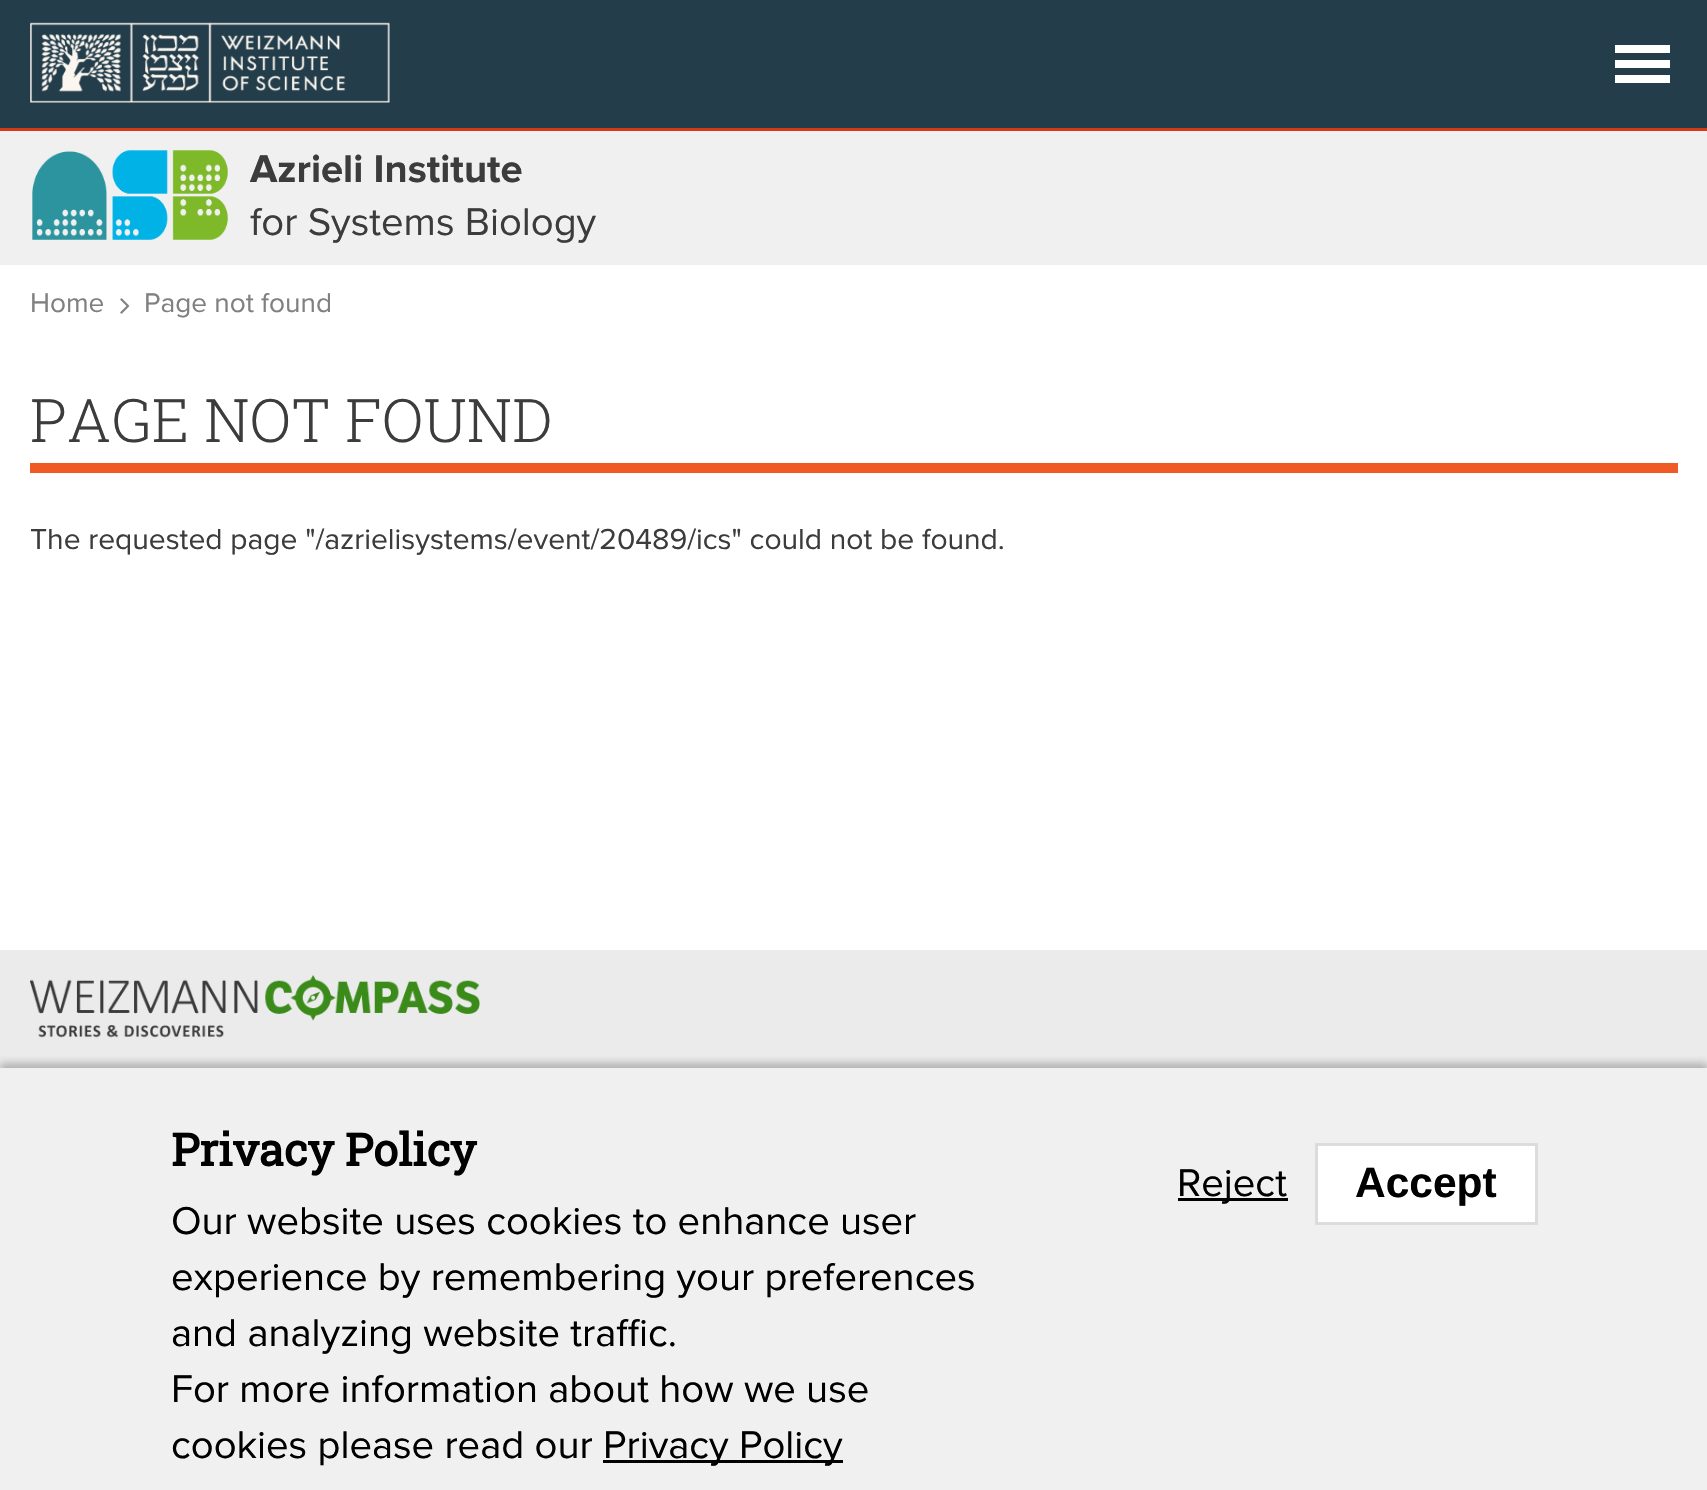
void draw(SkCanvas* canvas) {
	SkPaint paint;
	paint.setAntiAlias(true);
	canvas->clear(0xffffffff);
	paint.setColor(0xff243d4b);
	canvas->drawRect(SkRect::MakeXYWH(0, 0, 1707, 128), paint);
	paint.setColor(0xffffffff);
	canvas->drawRect(SkRect::MakeXYWH(1615, 45, 55, 8), paint);
	canvas->drawRect(SkRect::MakeXYWH(1615, 60, 55, 8), paint);
	canvas->drawRect(SkRect::MakeXYWH(1615, 75, 55, 8), paint);
	canvas->drawImageRect(SkImages::DeferredFromEncodedData(SkData::MakeFromFileName("img1.png")), SkRect::MakeXYWH(30, 22, 360, 81), SkSamplingOptions());
	paint.setColor(0xfff0f0f0);
	canvas->drawRect(SkRect::MakeXYWH(0, 131, 1707, 134), paint);
	paint.setColor(0xffd43a16);
	canvas->drawRect(SkRect::MakeXYWH(0, 128, 1707, 3), paint);
	canvas->drawImageRect(SkImages::DeferredFromEncodedData(SkData::MakeFromFileName("img2.png")), SkRect::MakeXYWH(32, 150, 196, 90), SkSamplingOptions());
	SkFont f1(fontMgr->matchFamilyStyle("Proxima Nova", SkFontStyle::Bold()), 40);
	f1.setSubpixel(true);
	paint.setColor(0xff3c3c3c);
	canvas->drawString("Azrieli Institute", 250, 182, f1, paint);
	SkFont f2(fontMgr->matchFamilyStyle("Proxima Nova", SkFontStyle::Normal()), 40);
	f2.setSubpixel(true);
	canvas->drawString("for Systems Biology", 250, 235, f2, paint);
	SkFont f3(fontMgr->matchFamilyStyle("Proxima Nova", SkFontStyle::Normal()), 28);
	f3.setSubpixel(true);
	paint.setColor(0xff808080);
	canvas->drawString("Home", 30, 312, f3, paint);
	canvas->drawImageRect(SkImages::DeferredFromEncodedData(SkData::MakeFromFileName("img3.png")), SkRect::MakeXYWH(120, 298, 10, 16), SkSamplingOptions());
	canvas->drawString("Page not found", 144, 312, f3, paint);
	paint.setColor(0xfff05a24);
	canvas->drawRect(SkRect::MakeXYWH(30, 463, 1648, 10), paint);
	SkFont f4(fontMgr->matchFamilyStyle("Roboto Slab", SkFontStyle(300, SkFontStyle::kNormal_Width, SkFontStyle::kUpright_Slant)), 60);
	f4.setSubpixel(true);
	paint.setColor(0xff3c3c3c);
	canvas->drawString("PAGE NOT FOUND", 30, 442, f4, paint);
	SkFont f5(fontMgr->matchFamilyStyle("Proxima Nova", SkFontStyle::Normal()), 30);
	f5.setSubpixel(true);
	canvas->drawString("The requested page \"/azrielisystems/event/20489/ics\" could not be found.", 30, 549, f5, paint);
	paint.setColor(0xffebebeb);
	canvas->drawRect(SkRect::MakeXYWH(0, 950, 1707, 118), paint);
	canvas->drawImageRect(SkImages::DeferredFromEncodedData(SkData::MakeFromFileName("img4.png")), SkRect::MakeXYWH(30, 975, 450, 63), SkSamplingOptions());
	paint.setColor(0xfff0f0f0);
	canvas->drawRect(SkRect::MakeXYWH(0, 1068, 1707, 422), paint);
	canvas->save();
	canvas->clipRect(SkRect::MakeXYWH(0, 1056, 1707, 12));
	paint.setColor(0x6b5f5f5f);
	paint.setMaskFilter(SkMaskFilter::MakeBlur(kNormal_SkBlurStyle, 4));
	canvas->drawRect(SkRect::MakeXYWH(0, 1063, 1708, 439), paint);
	paint.setMaskFilter(nullptr);
	canvas->restore();
	SkFont f6(fontMgr->matchFamilyStyle("Roboto Slab", SkFontStyle::Bold()), 45);
	f6.setSubpixel(true);
	paint.setColor(0xff000000);
	canvas->drawString("Privacy Policy", 171, 1166, f6, paint);
	canvas->drawString("Our website uses cookies to enhance user", 171, 1234, f2, paint);
	canvas->drawString("experience by remembering your preferences", 171, 1290, f2, paint);
	canvas->drawString("and analyzing website traffic.", 171, 1346, f2, paint);
	canvas->drawString("For more information about how we use", 171, 1402, f2, paint);
	canvas->drawString("cookies please read our", 171, 1458, f2, paint);
	canvas->drawRect(SkRect::MakeXYWH(603, 1460, 240, 3), paint);
	canvas->drawString("Privacy Policy", 603, 1458, f2, paint);
	canvas->drawRect(SkRect::MakeXYWH(1178, 1198, 110, 3), paint);
	canvas->drawString("Reject", 1177, 1196, f2, paint);
	paint.setColor(0xffffffff);
	canvas->drawRect(SkRect::MakeXYWH(1316.5, 1144.5, 220, 79), paint);
	paint.setStroke(true);
	paint.setStrokeWidth(3);
	paint.setColor(0xffdcdcdc);
	canvas->drawRect(SkRect::MakeXYWH(1316.5, 1144.5, 220, 79), paint);
	SkFont f7(fontMgr->matchFamilyStyle("Liberation Sans", SkFontStyle::Bold()), 42.5);
	f7.setSubpixel(true);
	paint.setStroke(false);
	paint.setColor(0xff000000);
	canvas->drawString("Accept", 1355, 1197, f7, paint);
}
